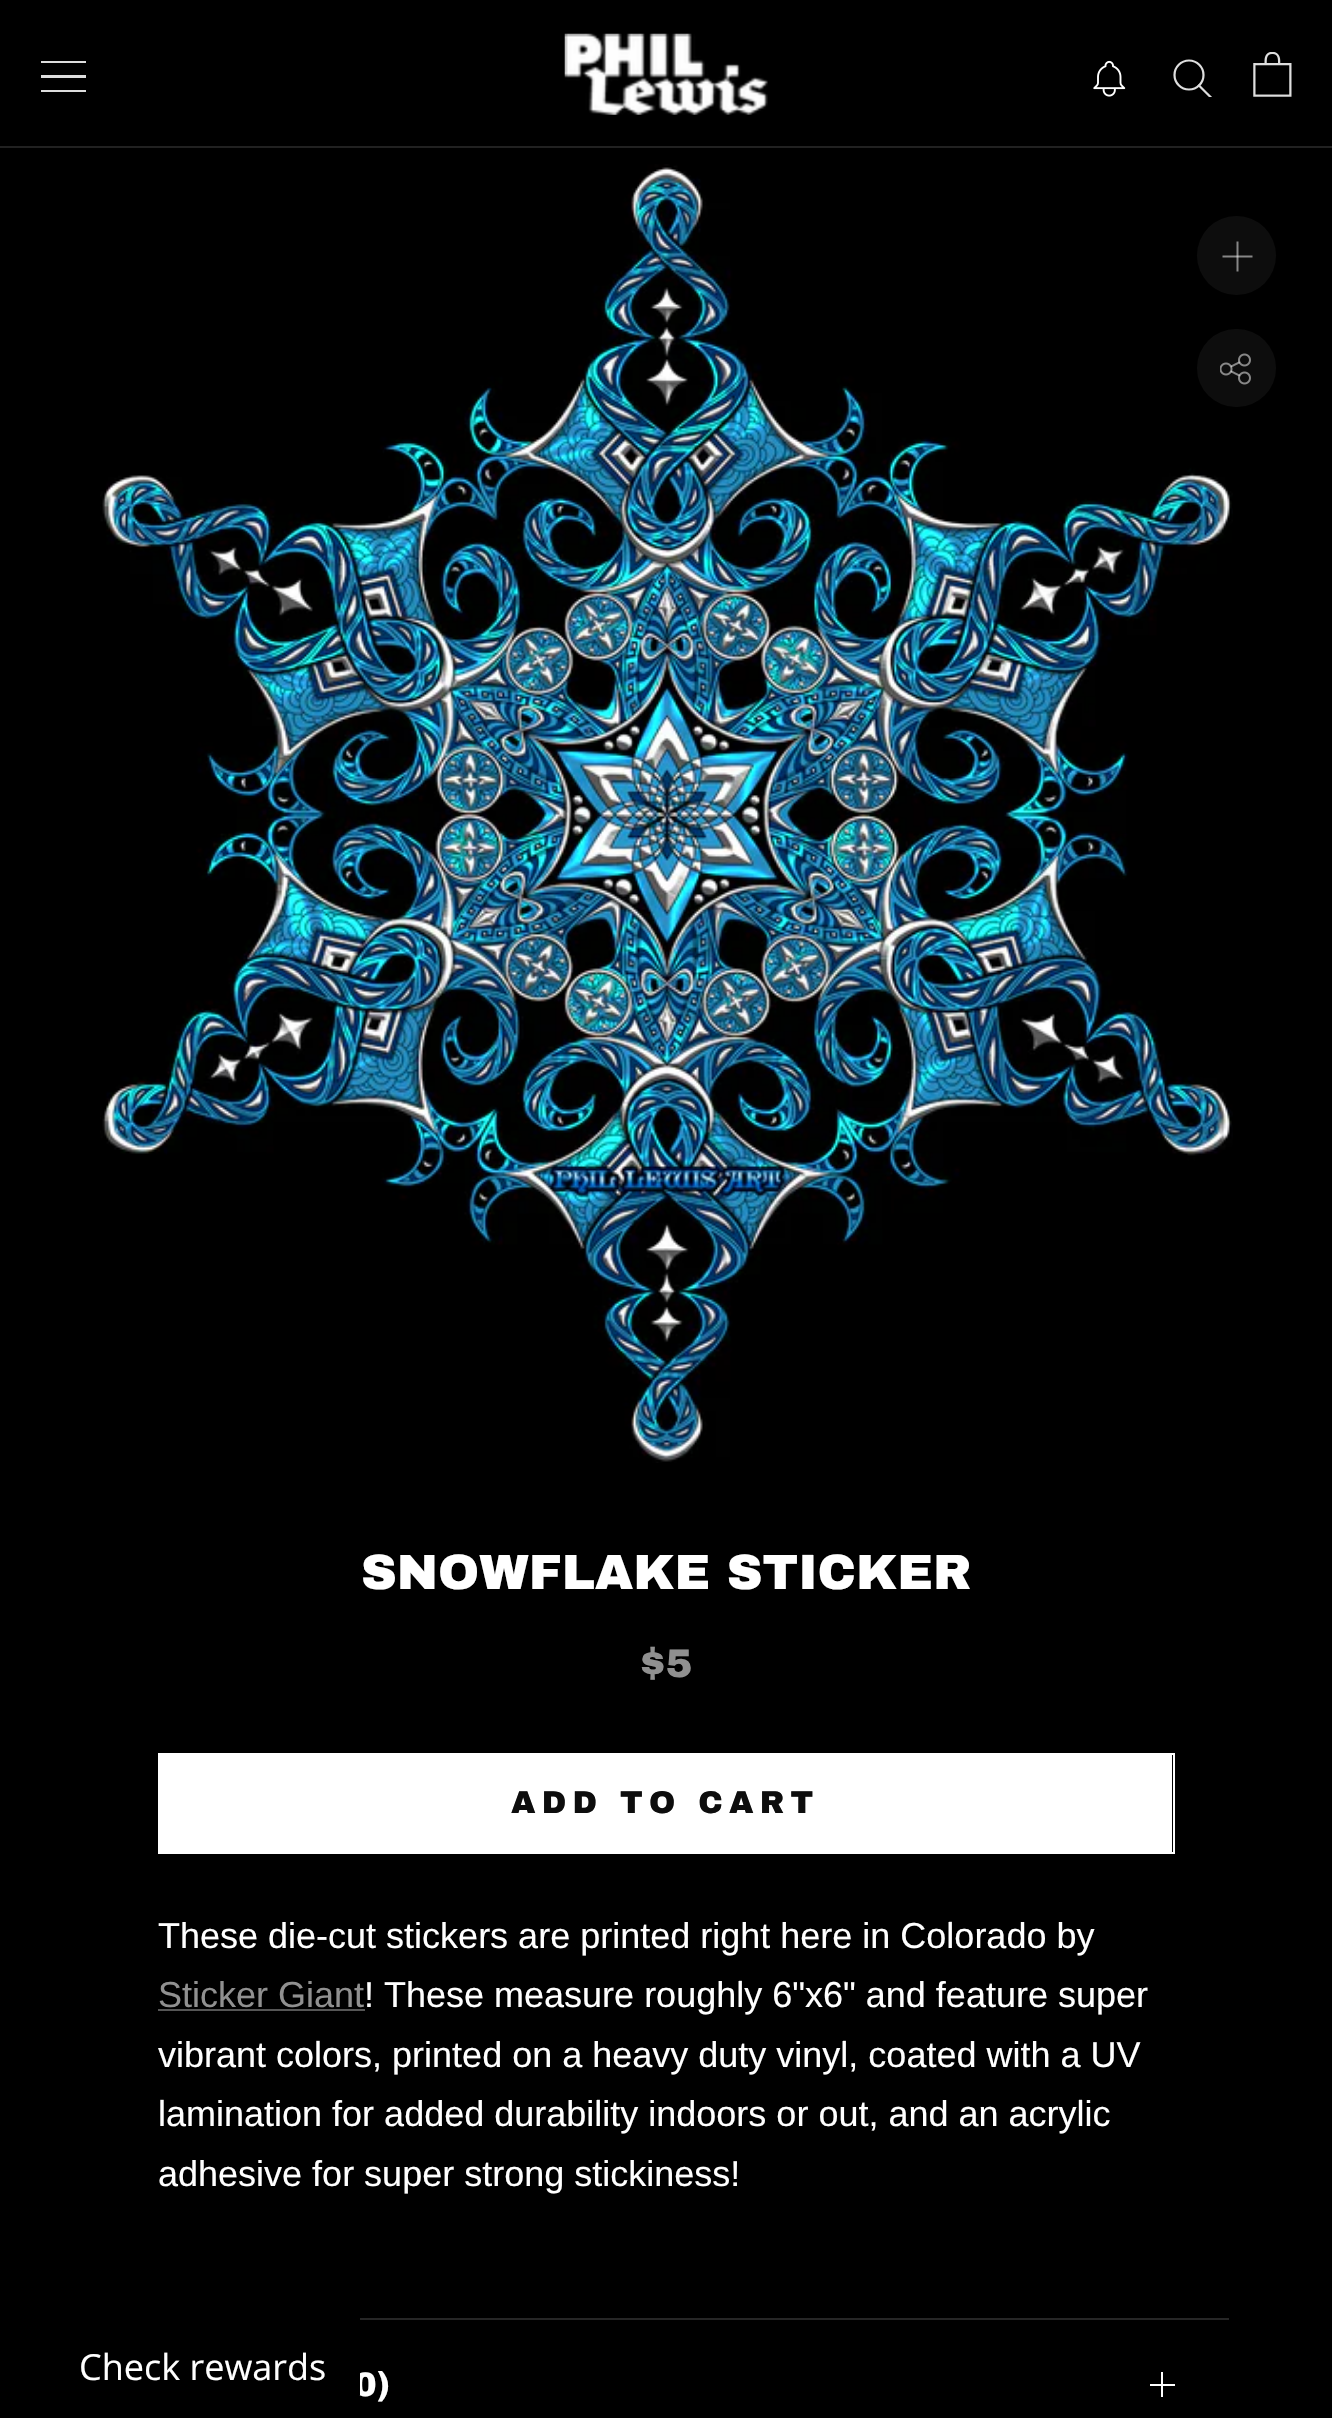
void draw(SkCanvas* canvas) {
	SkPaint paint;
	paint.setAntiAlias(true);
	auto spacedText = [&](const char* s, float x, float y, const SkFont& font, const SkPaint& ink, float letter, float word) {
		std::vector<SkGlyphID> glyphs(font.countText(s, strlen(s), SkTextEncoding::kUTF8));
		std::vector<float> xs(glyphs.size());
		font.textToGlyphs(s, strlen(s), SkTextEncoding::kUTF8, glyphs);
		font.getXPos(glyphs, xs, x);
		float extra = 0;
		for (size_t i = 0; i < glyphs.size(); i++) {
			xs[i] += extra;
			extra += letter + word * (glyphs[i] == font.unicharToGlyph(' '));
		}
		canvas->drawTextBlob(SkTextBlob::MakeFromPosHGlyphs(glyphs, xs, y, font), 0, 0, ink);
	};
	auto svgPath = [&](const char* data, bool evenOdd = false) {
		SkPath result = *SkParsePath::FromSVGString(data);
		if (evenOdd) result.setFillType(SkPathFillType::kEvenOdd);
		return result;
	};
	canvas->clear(0xff000000);
	paint.setColor(0xff212121);
	canvas->drawRect(SkRect::MakeXYWH(0, 146, 1332, 2), paint);
	canvas->save();
	canvas->clipRect(SkRect::MakeXYWH(41, 61, 45, 31));
	paint.setColor(0xffdedede);
	canvas->drawPath(svgPath("M40 92V90H86V92ZM40 75H86V78H40ZM40 61H86V63H40Z"), paint);
	canvas->restore();
	canvas->drawImageRect(SkImages::DeferredFromEncodedData(SkData::MakeFromFileName("img1.png")), SkRect::MakeXYWH(564, 33, 204, 82), SkSamplingOptions());
	canvas->drawImageRect(SkImages::DeferredFromEncodedData(SkData::MakeFromFileName("img2.png")), SkRect::MakeXYWH(1093, 60, 33, 37), SkSamplingOptions());
	canvas->save();
	canvas->clipRect(SkRect::MakeXYWH(1172, 59, 41, 38));
	paint.setStroke(true);
	paint.setStrokeWidth(2.2);
	paint.setStrokeCap(SkPaint::kSquare_Cap);
	canvas->drawPath(svgPath("M1210.5 97L1199 85.5"), paint);
	canvas->restore();
	paint.setStrokeCap(SkPaint::kButt_Cap);
	canvas->drawCircle(1189, 75, 14.5, paint);
	canvas->drawImageRect(SkImages::DeferredFromEncodedData(SkData::MakeFromFileName("img3.png")), SkRect::MakeXYWH(1253, 52, 39, 45), SkSamplingOptions());
	canvas->drawImageRect(SkImages::DeferredFromEncodedData(SkData::MakeFromFileName("img4.png")), SkRect::MakeXYWH(100, 164, 1133, 1299), SkSamplingOptions());
	paint.setStroke(false);
	paint.setColor(0xff0d0d0d);
	canvas->drawCircle(1236.5, 255.5, 39.5, paint);
	paint.setStroke(true);
	paint.setStrokeWidth(2);
	paint.setStrokeCap(SkPaint::kSquare_Cap);
	paint.setColor(0xff868686);
	canvas->drawPath(svgPath("M1237.5 242.5V270.5"), paint);
	paint.setColor(0x80ffffff);
	canvas->drawPath(svgPath("M1223.5 256.5H1251.5"), paint);
	paint.setStroke(false);
	paint.setColor(0xff0d0d0d);
	canvas->drawRoundRect(SkRect::MakeXYWH(1197, 329, 79, 78), 39, 39, paint);
	canvas->drawImageRect(SkImages::DeferredFromEncodedData(SkData::MakeFromFileName("img5.png")), SkRect::MakeXYWH(1220, 353, 31, 32), SkSamplingOptions());
	SkFont f1(fontMgr->matchFamilyStyle("Archivo Black", SkFontStyle::Normal()), 49.5);
	f1.setSubpixel(true);
	paint.setColor(0xffffffff);
	canvas->drawString("SNOWFLAKE STICKER", 361, 1589, f1, paint);
	SkFont f2(fontMgr->matchFamilyStyle("Archivo Black", SkFontStyle::Normal()), 40);
	f2.setSubpixel(true);
	paint.setColor(0xff909090);
	canvas->drawString("$5", 639, 1677, f2, paint);
	paint.setStroke(true);
	paint.setStrokeCap(SkPaint::kButt_Cap);
	paint.setColor(0xffffffff);
	canvas->drawRect(SkRect::MakeXYWH(159, 1754, 1015, 99), paint);
	paint.setStroke(false);
	canvas->drawRect(SkRect::MakeXYWH(160, 1755, 1012, 97), paint);
	SkFont f3(fontMgr->matchFamilyStyle("Archivo Black", SkFontStyle::Normal()), 31.5);
	f3.setSubpixel(true);
	paint.setColor(0xff0d0d0d);
	spacedText("ADD TO CART", 511, 1813, f3, paint, 6.25, 0);
	SkFont f4(fontMgr->matchFamilyStyle("Liberation Sans", SkFontStyle::Normal()), 36);
	f4.setSubpixel(true);
	paint.setColor(0xffffffff);
	canvas->drawString("These die-cut stickers are printed right here in Colorado by", 158, 1948, f4, paint);
	paint.setColor(0xff909090);
	canvas->drawString("Sticker Giant", 158, 2007, f4, paint);
	paint.setColor(0xffffffff);
	canvas->drawString("! These measure roughly 6\"x6\" and feature super", 364, 2007, f4, paint);
	paint.setColor(0xff565656);
	canvas->drawRect(SkRect::MakeXYWH(158, 2009, 207, 2), paint);
	paint.setColor(0xffffffff);
	canvas->drawString("vibrant colors, printed on a heavy duty vinyl, coated with a UV", 158, 2067, f4, paint);
	canvas->drawString("lamination for added durability indoors or out, and an acrylic", 158, 2126, f4, paint);
	canvas->drawString("adhesive for super strong stickiness!", 158, 2186, f4, paint);
	paint.setColor(0xff262626);
	canvas->drawRect(SkRect::MakeXYWH(360, 2318, 869, 2), paint);
	SkFont f5(fontMgr->matchFamilyStyle("Archivo Black", SkFontStyle::Normal()), 34);
	f5.setSubpixel(true);
	paint.setColor(0xffffffff);
	canvas->drawString("0)", 354, 2396, f5, paint);
	canvas->drawRect(SkRect::MakeXYWH(1161, 2372, 2, 25), paint);
	canvas->drawRect(SkRect::MakeXYWH(1150, 2384, 25, 2), paint);
	paint.setColor(0xff000000);
	canvas->drawRect(SkRect::MakeXYWH(355, 2373, 5, 22), paint);
	SkFont f6(fontMgr->matchFamilyStyle("Open Sans", SkFontStyle::Normal()), 36);
	f6.setSubpixel(true);
	paint.setColor(0xffffffff);
	canvas->drawString("Check rewards", 79, 2380, f6, paint);
}
